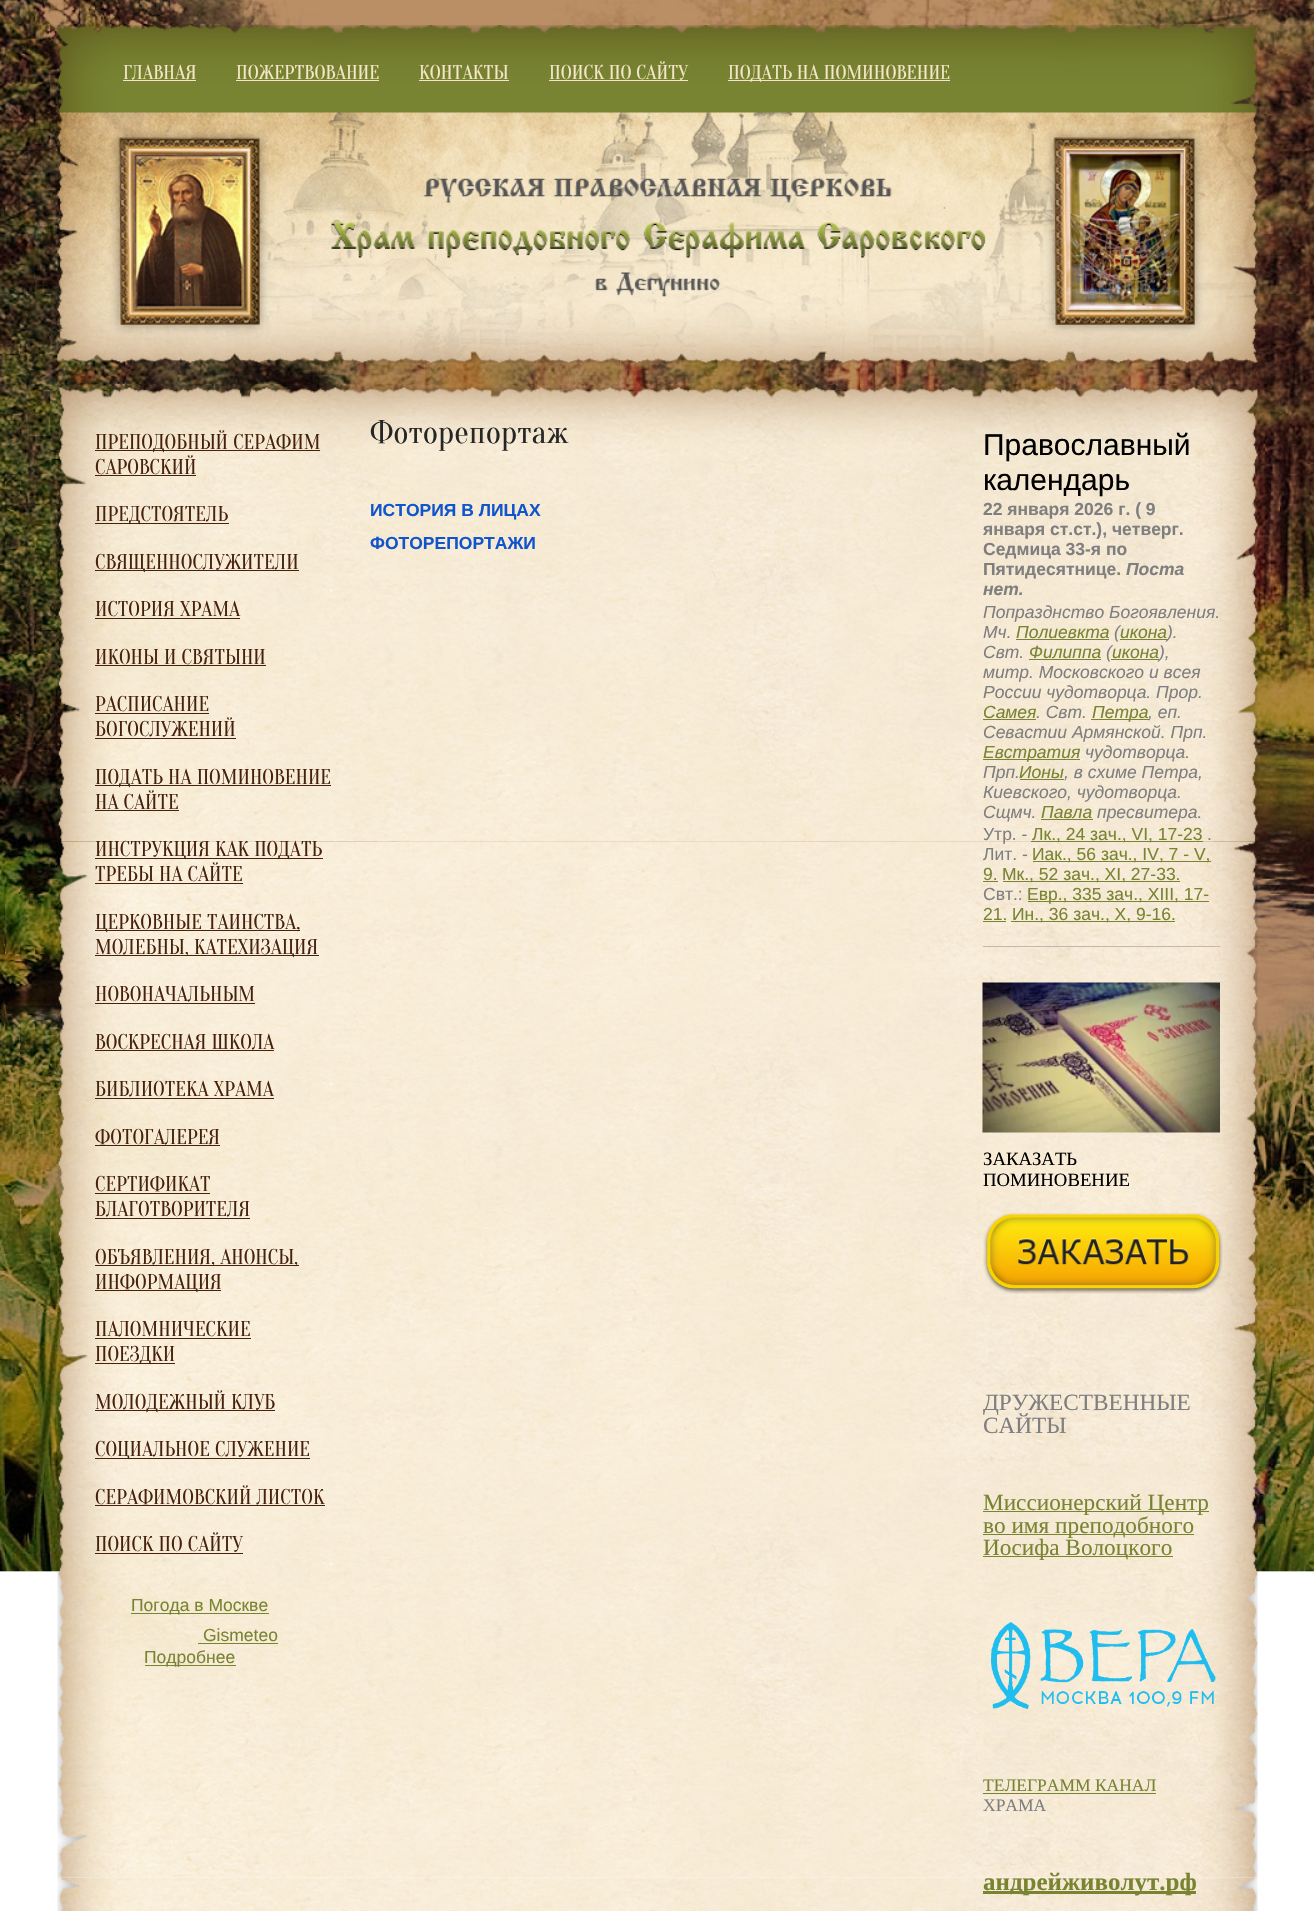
void draw(SkCanvas* canvas) {
	SkPaint paint;
	paint.setAntiAlias(true);
	canvas->clear(0xffffffff);
	canvas->drawImageRect(SkImages::DeferredFromEncodedData(SkData::MakeFromFileName("img1.png")), SkRect::MakeXYWH(0, 0, 1314, 1572), SkSamplingOptions());
	canvas->drawImageRect(SkImages::DeferredFromEncodedData(SkData::MakeFromFileName("img2.png")), SkRect::MakeXYWH(57, 25, 1201, 338), SkSamplingOptions());
	SkFont f1(fontMgr->matchFamilyStyle("Oranienbaum", SkFontStyle::Normal()), 20);
	f1.setSubpixel(true);
	paint.setColor(0xfff5e6c9);
	canvas->drawString("ГЛАВНАЯ", 123, 79, f1, paint);
	canvas->drawRect(SkRect::MakeXYWH(123, 80, 73, 1), paint);
	canvas->drawString("ПОЖЕРТВОВАНИЕ", 236, 79, f1, paint);
	canvas->drawRect(SkRect::MakeXYWH(236, 80, 143, 1), paint);
	canvas->drawString("КОНТАКТЫ", 419, 79, f1, paint);
	canvas->drawRect(SkRect::MakeXYWH(419, 80, 90, 1), paint);
	canvas->drawString("ПОИСК ПО САЙТУ", 549, 79, f1, paint);
	canvas->drawRect(SkRect::MakeXYWH(549, 80, 139, 1), paint);
	canvas->drawRect(SkRect::MakeXYWH(728, 80, 222, 1), paint);
	canvas->drawString("ПОДАТЬ НА ПОМИНОВЕНИЕ", 728, 79, f1, paint);
	paint.setColor(0x5e000000);
	paint.setMaskFilter(SkMaskFilter::MakeBlur(kNormal_SkBlurStyle, 5));
	canvas->drawRect(SkRect::MakeXYWH(119, 138, 141, 187), paint);
	paint.setMaskFilter(nullptr);
	canvas->drawImageRect(SkImages::DeferredFromEncodedData(SkData::MakeFromFileName("img3.png")), SkRect::MakeXYWH(118, 137, 142, 188), SkSamplingOptions());
	canvas->drawImageRect(SkImages::DeferredFromEncodedData(SkData::MakeFromFileName("img4.png")), SkRect::MakeXYWH(331, 178, 655, 119), SkSamplingOptions());
	paint.setMaskFilter(SkMaskFilter::MakeBlur(kNormal_SkBlurStyle, 5));
	canvas->drawRect(SkRect::MakeXYWH(1054, 138, 141, 187), paint);
	paint.setMaskFilter(nullptr);
	canvas->drawImageRect(SkImages::DeferredFromEncodedData(SkData::MakeFromFileName("img5.png")), SkRect::MakeXYWH(1053, 137, 142, 188), SkSamplingOptions());
	canvas->drawImageRect(SkImages::DeferredFromEncodedData(SkData::MakeFromFileName("img10.png")), SkRect::MakeXYWH(57, 841, 1201, 1037), SkSamplingOptions());
	canvas->drawImageRect(SkImages::DeferredFromEncodedData(SkData::MakeFromFileName("img6.png")), SkRect::MakeXYWH(57, 387, 1201, 455), SkSamplingOptions());
	paint.setColor(0xff46210d);
	canvas->drawRect(SkRect::MakeXYWH(95, 450, 225, 1), paint);
	SkFont f2(fontMgr->matchFamilyStyle("Oranienbaum", SkFontStyle::Normal()), 21.25);
	f2.setSubpixel(true);
	canvas->drawString("ПРЕПОДОБНЫЙ СЕРАФИМ", 95, 449, f2, paint);
	canvas->drawString("САРОВСКИЙ", 95, 474, f2, paint);
	canvas->drawRect(SkRect::MakeXYWH(95, 475, 101, 1), paint);
	canvas->drawRect(SkRect::MakeXYWH(95, 523, 134, 1), paint);
	canvas->drawString("ПРЕДСТОЯТЕЛЬ", 95, 521, f2, paint);
	canvas->drawRect(SkRect::MakeXYWH(95, 570, 204, 1), paint);
	canvas->drawString("СВЯЩЕННОСЛУЖИТЕЛИ", 95, 569, f2, paint);
	canvas->drawString("ИСТОРИЯ ХРАМА", 95, 616, f2, paint);
	canvas->drawRect(SkRect::MakeXYWH(95, 618, 145, 1), paint);
	canvas->drawString("ИКОНЫ И СВЯТЫНИ", 95, 664, f2, paint);
	canvas->drawRect(SkRect::MakeXYWH(95, 665, 171, 1), paint);
	canvas->drawString("РАСПИСАНИЕ", 95, 711, f2, paint);
	canvas->drawRect(SkRect::MakeXYWH(95, 713, 114, 1), paint);
	canvas->drawString("БОГОСЛУЖЕНИЙ", 95, 736, f2, paint);
	canvas->drawRect(SkRect::MakeXYWH(95, 738, 141, 1), paint);
	canvas->drawRect(SkRect::MakeXYWH(95, 785, 236, 1), paint);
	canvas->drawString("ПОДАТЬ НА ПОМИНОВЕНИЕ", 95, 784, f2, paint);
	canvas->drawString("НА САЙТЕ", 95, 809, f2, paint);
	canvas->drawRect(SkRect::MakeXYWH(95, 810, 84, 1), paint);
	canvas->drawRect(SkRect::MakeXYWH(95, 858, 228, 1), paint);
	canvas->drawString("ИНСТРУКЦИЯ КАК ПОДАТЬ", 95, 856, f2, paint);
	canvas->drawString("ТРЕБЫ НА САЙТЕ", 95, 881, f2, paint);
	canvas->drawRect(SkRect::MakeXYWH(95, 883, 148, 1), paint);
	canvas->drawRect(SkRect::MakeXYWH(95, 930, 205, 1), paint);
	canvas->drawString("ЦЕРКОВНЫЕ ТАИНСТВА,", 95, 929, f2, paint);
	canvas->drawRect(SkRect::MakeXYWH(95, 955, 224, 1), paint);
	canvas->drawString("МОЛЕБНЫ, КАТЕХИЗАЦИЯ", 95, 954, f2, paint);
	canvas->drawString("НОВОНАЧАЛЬНЫМ", 95, 1001, f2, paint);
	canvas->drawRect(SkRect::MakeXYWH(95, 1003, 160, 1), paint);
	canvas->drawString("ВОСКРЕСНАЯ ШКОЛА", 95, 1049, f2, paint);
	canvas->drawRect(SkRect::MakeXYWH(95, 1050, 179, 1), paint);
	canvas->drawString("БИБЛИОТЕКА ХРАМА", 95, 1096, f2, paint);
	canvas->drawRect(SkRect::MakeXYWH(95, 1098, 179, 1), paint);
	canvas->drawString("ФОТОГАЛЕРЕЯ", 95, 1144, f2, paint);
	canvas->drawRect(SkRect::MakeXYWH(95, 1145, 125, 1), paint);
	canvas->drawString("СЕРТИФИКАТ", 95, 1191, f2, paint);
	canvas->drawRect(SkRect::MakeXYWH(95, 1193, 115, 1), paint);
	canvas->drawString("БЛАГОТВОРИТЕЛЯ", 95, 1216, f2, paint);
	canvas->drawRect(SkRect::MakeXYWH(95, 1218, 155, 1), paint);
	canvas->drawRect(SkRect::MakeXYWH(95, 1265, 204, 1), paint);
	canvas->drawString("ОБЪЯВЛЕНИЯ, АНОНСЫ,", 95, 1264, f2, paint);
	canvas->drawRect(SkRect::MakeXYWH(95, 1290, 126, 1), paint);
	canvas->drawString("ИНФОРМАЦИЯ", 95, 1289, f2, paint);
	canvas->drawString("ПАЛОМНИЧЕСКИЕ", 95, 1336, f2, paint);
	canvas->drawRect(SkRect::MakeXYWH(95, 1338, 156, 1), paint);
	canvas->drawRect(SkRect::MakeXYWH(95, 1363, 80, 1), paint);
	canvas->drawString("ПОЕЗДКИ", 95, 1361, f2, paint);
	canvas->drawRect(SkRect::MakeXYWH(95, 1410, 180, 1), paint);
	canvas->drawString("МОЛОДЕЖНЫЙ КЛУБ", 95, 1409, f2, paint);
	canvas->drawRect(SkRect::MakeXYWH(95, 1458, 215, 1), paint);
	canvas->drawString("СОЦИАЛЬНОЕ СЛУЖЕНИЕ", 95, 1456, f2, paint);
	canvas->drawString("СЕРАФИМОВСКИЙ ЛИСТОК", 95, 1504, f2, paint);
	canvas->drawRect(SkRect::MakeXYWH(95, 1505, 230, 1), paint);
	canvas->drawString("ПОИСК ПО САЙТУ", 95, 1551, f2, paint);
	canvas->drawRect(SkRect::MakeXYWH(95, 1553, 148, 1), paint);
	paint.setColor(0xff788432);
	canvas->drawRect(SkRect::MakeXYWH(131, 1613, 138, 1), paint);
	SkFont f3(fontMgr->matchFamilyStyle("Liberation Sans", SkFontStyle::Normal()), 17.5);
	f3.setSubpixel(true);
	canvas->drawString("Погода в Москве", 131, 1611, f3, paint);
	canvas->drawString("Gismeteo", 203, 1641, f3, paint);
	canvas->drawRect(SkRect::MakeXYWH(198, 1643, 80, 1), paint);
	canvas->drawRect(SkRect::MakeXYWH(145, 1665, 91, 1), paint);
	canvas->drawString("Подробнее", 144, 1663, f3, paint);
	SkFont f4(fontMgr->matchFamilyStyle("Oranienbaum", SkFontStyle::Normal()), 32.5);
	f4.setSubpixel(true);
	paint.setColor(0xff262626);
	canvas->drawString("Фоторепортаж", 370, 443, f4, paint);
	SkFont f5(fontMgr->matchFamilyStyle("Liberation Sans", SkFontStyle::Bold()), 17.5);
	f5.setSubpixel(true);
	paint.setColor(0xff1155cc);
	canvas->drawString("ИСТОРИЯ В ЛИЦАХ", 370, 516, f5, paint);
	canvas->drawString("ФОТОРЕПОРТАЖИ", 370, 549, f5, paint);
	SkFont f6(fontMgr->matchFamilyStyle("Liberation Sans", SkFontStyle::Normal()), 30);
	f6.setSubpixel(true);
	paint.setColor(0xff000000);
	canvas->drawString("Православный", 983, 455, f6, paint);
	canvas->drawString("календарь", 983, 490, f6, paint);
	paint.setColor(0xff7f7f7f);
	canvas->drawString("22 января 2026 г. ( 9", 983, 515, f5, paint);
	canvas->drawString("января ст.ст.), четверг.", 983, 535, f5, paint);
	canvas->drawString("Седмица 33-я по", 983, 555, f5, paint);
	canvas->drawString("Пятидесятнице.", 983, 575, f5, paint);
	SkFont f7(fontMgr->matchFamilyStyle("Liberation Sans", SkFontStyle::BoldItalic()), 17.5);
	f7.setSubpixel(true);
	canvas->drawString("Поста", 1126, 575, f7, paint);
	canvas->drawString("нет.", 983, 595, f7, paint);
	SkFont f8(fontMgr->matchFamilyStyle("Liberation Sans", SkFontStyle::Italic()), 17.5);
	f8.setSubpixel(true);
	canvas->drawString("Попразднство Богоявления.", 983, 618, f8, paint);
	canvas->drawString("Мч.", 983, 638, f8, paint);
	paint.setColor(0xff788432);
	canvas->drawString("Полиевкта", 1016, 638, f8, paint);
	canvas->drawRect(SkRect::MakeXYWH(1016, 639, 93, 1), paint);
	paint.setColor(0xff7f7f7f);
	canvas->drawString("(", 1114, 638, f8, paint);
	paint.setColor(0xff788432);
	canvas->drawRect(SkRect::MakeXYWH(1120, 639, 48, 1), paint);
	canvas->drawString("икона", 1120, 638, f8, paint);
	paint.setColor(0xff7f7f7f);
	canvas->drawString(").", 1167, 638, f8, paint);
	canvas->drawString("Свт.", 983, 658, f8, paint);
	paint.setColor(0xff788432);
	canvas->drawString("Филиппа", 1029, 658, f8, paint);
	canvas->drawRect(SkRect::MakeXYWH(1029, 659, 72, 1), paint);
	paint.setColor(0xff7f7f7f);
	canvas->drawString("(", 1106, 658, f8, paint);
	paint.setColor(0xff788432);
	canvas->drawRect(SkRect::MakeXYWH(1111, 659, 48, 1), paint);
	canvas->drawString("икона", 1112, 658, f8, paint);
	paint.setColor(0xff7f7f7f);
	canvas->drawString("),", 1159, 658, f8, paint);
	canvas->drawString("митр. Московского и всея", 983, 678, f8, paint);
	canvas->drawString("России чудотворца. Прор.", 983, 698, f8, paint);
	paint.setColor(0xff788432);
	canvas->drawString("Самея", 983, 718, f8, paint);
	canvas->drawRect(SkRect::MakeXYWH(983, 719, 53, 1), paint);
	paint.setColor(0xff7f7f7f);
	canvas->drawString(". Свт.", 1036, 718, f8, paint);
	paint.setColor(0xff788432);
	canvas->drawRect(SkRect::MakeXYWH(1091, 719, 58, 1), paint);
	canvas->drawString("Петра", 1092, 718, f8, paint);
	paint.setColor(0xff7f7f7f);
	canvas->drawString(", еп.", 1148, 718, f8, paint);
	canvas->drawString("Севастии Армянской. Прп.", 983, 738, f8, paint);
	paint.setColor(0xff788432);
	canvas->drawRect(SkRect::MakeXYWH(983, 759, 97, 1), paint);
	canvas->drawString("Евстратия", 983, 758, f8, paint);
	paint.setColor(0xff7f7f7f);
	canvas->drawString("чудотворца.", 1085, 758, f8, paint);
	canvas->drawString("Прп.", 983, 778, f8, paint);
	paint.setColor(0xff788432);
	canvas->drawString("Ионы", 1019, 778, f8, paint);
	paint.setColor(0xff7f7f7f);
	canvas->drawString(", в схиме Петра,", 1064, 778, f8, paint);
	paint.setColor(0xff788432);
	canvas->drawRect(SkRect::MakeXYWH(1020, 779, 44, 1), paint);
	paint.setColor(0xff7f7f7f);
	canvas->drawString("Киевского, чудотворца.", 983, 798, f8, paint);
	canvas->drawString("Сщмч.", 983, 818, f8, paint);
	paint.setColor(0xff788432);
	canvas->drawString("Павла", 1041, 818, f8, paint);
	paint.setColor(0xff7f7f7f);
	canvas->drawString("пресвитера.", 1097, 818, f8, paint);
	paint.setColor(0xff788432);
	canvas->drawRect(SkRect::MakeXYWH(1041, 819, 52, 1), paint);
	paint.setColor(0xff7f7f7f);
	canvas->drawString("Утр. -", 983, 840, f3, paint);
	paint.setColor(0xff788432);
	canvas->drawRect(SkRect::MakeXYWH(1031, 841, 172, 1), paint);
	canvas->drawString("Лк., 24 зач., VI, 17-23", 1032, 840, f3, paint);
	paint.setColor(0xff7f7f7f);
	canvas->drawString(".", 1207, 840, f3, paint);
	canvas->drawString("Лит. -", 983, 860, f3, paint);
	paint.setColor(0xff788432);
	canvas->drawRect(SkRect::MakeXYWH(1033, 861, 178, 1), paint);
	canvas->drawString("Иак., 56 зач., IV, 7 - V,", 1032, 860, f3, paint);
	canvas->drawString("9.", 983, 880, f3, paint);
	canvas->drawRect(SkRect::MakeXYWH(983, 881, 15, 1), paint);
	canvas->drawRect(SkRect::MakeXYWH(1003, 881, 177, 1), paint);
	canvas->drawString("Мк., 52 зач., XI, 27-33.", 1002, 880, f3, paint);
	paint.setColor(0xff7f7f7f);
	canvas->drawString("Свт.:", 983, 900, f3, paint);
	paint.setColor(0xff788432);
	canvas->drawRect(SkRect::MakeXYWH(1028, 901, 181, 1), paint);
	canvas->drawString("Евр., 335 зач., XIII, 17-", 1027, 900, f3, paint);
	canvas->drawString("21.", 983, 920, f3, paint);
	canvas->drawRect(SkRect::MakeXYWH(983, 921, 23, 1), paint);
	canvas->drawRect(SkRect::MakeXYWH(1011, 921, 164, 1), paint);
	canvas->drawString("Ин., 36 зач., X, 9-16.", 1012, 920, f3, paint);
	paint.setColor(0xffc9b5a4);
	canvas->drawRect(SkRect::MakeXYWH(983, 946, 237, 1), paint);
	canvas->drawImageRect(SkImages::DeferredFromEncodedData(SkData::MakeFromFileName("img7.png")), SkRect::MakeXYWH(982, 982, 238, 151), SkSamplingOptions());
	SkFont f9(fontMgr->matchFamilyStyle("Liberation Serif", SkFontStyle::Normal()), 18.75);
	f9.setSubpixel(true);
	paint.setColor(0xff000000);
	canvas->drawString("ЗАКАЗАТЬ", 983, 1165, f9, paint);
	canvas->drawString("ПОМИНОВЕНИЕ", 983, 1186, f9, paint);
	canvas->drawImageRect(SkImages::DeferredFromEncodedData(SkData::MakeFromFileName("img8.png")), SkRect::MakeXYWH(983, 1213, 240, 81), SkSamplingOptions());
	SkFont f10(fontMgr->matchFamilyStyle("Liberation Serif", SkFontStyle::Normal()), 23.25);
	f10.setSubpixel(true);
	paint.setColor(0xff7f7f7f);
	canvas->drawString("ДРУЖЕСТВЕННЫЕ", 983, 1410, f10, paint);
	canvas->drawString("САЙТЫ", 983, 1433, f10, paint);
	paint.setColor(0xff788432);
	canvas->drawRect(SkRect::MakeXYWH(983, 1511, 226, 1), paint);
	canvas->drawString("Миссионерский Центр", 983, 1510, f10, paint);
	canvas->drawRect(SkRect::MakeXYWH(983, 1534, 211, 1), paint);
	canvas->drawString("во имя преподобного", 983, 1533, f10, paint);
	canvas->drawRect(SkRect::MakeXYWH(983, 1556, 190, 1), paint);
	canvas->drawString("Иосифа Волоцкого", 983, 1555, f10, paint);
	canvas->drawImageRect(SkImages::DeferredFromEncodedData(SkData::MakeFromFileName("img9.png")), SkRect::MakeXYWH(991, 1622, 225, 87), SkSamplingOptions());
	SkFont f11(fontMgr->matchFamilyStyle("Liberation Serif", SkFontStyle::Normal()), 17.5);
	f11.setSubpixel(true);
	canvas->drawString("ТЕЛЕГРАММ КАНАЛ", 983, 1791, f11, paint);
	canvas->drawRect(SkRect::MakeXYWH(983, 1793, 173, 1), paint);
	paint.setColor(0xff7f7f7f);
	canvas->drawString("ХРАМА", 983, 1811, f11, paint);
	canvas->drawImageRect(SkImages::DeferredFromEncodedData(SkData::MakeFromFileName("img11.png")), SkRect::MakeXYWH(57, 1877, 1201, 34), SkSamplingOptions());
	paint.setColor(0xff788432);
	canvas->drawRect(SkRect::MakeXYWH(983, 1891, 213, 3), paint);
	SkFont f12(fontMgr->matchFamilyStyle("Liberation Serif", SkFontStyle::Bold()), 25);
	f12.setSubpixel(true);
	canvas->drawString("андрейживолут.рф", 983, 1890, f12, paint);
}
